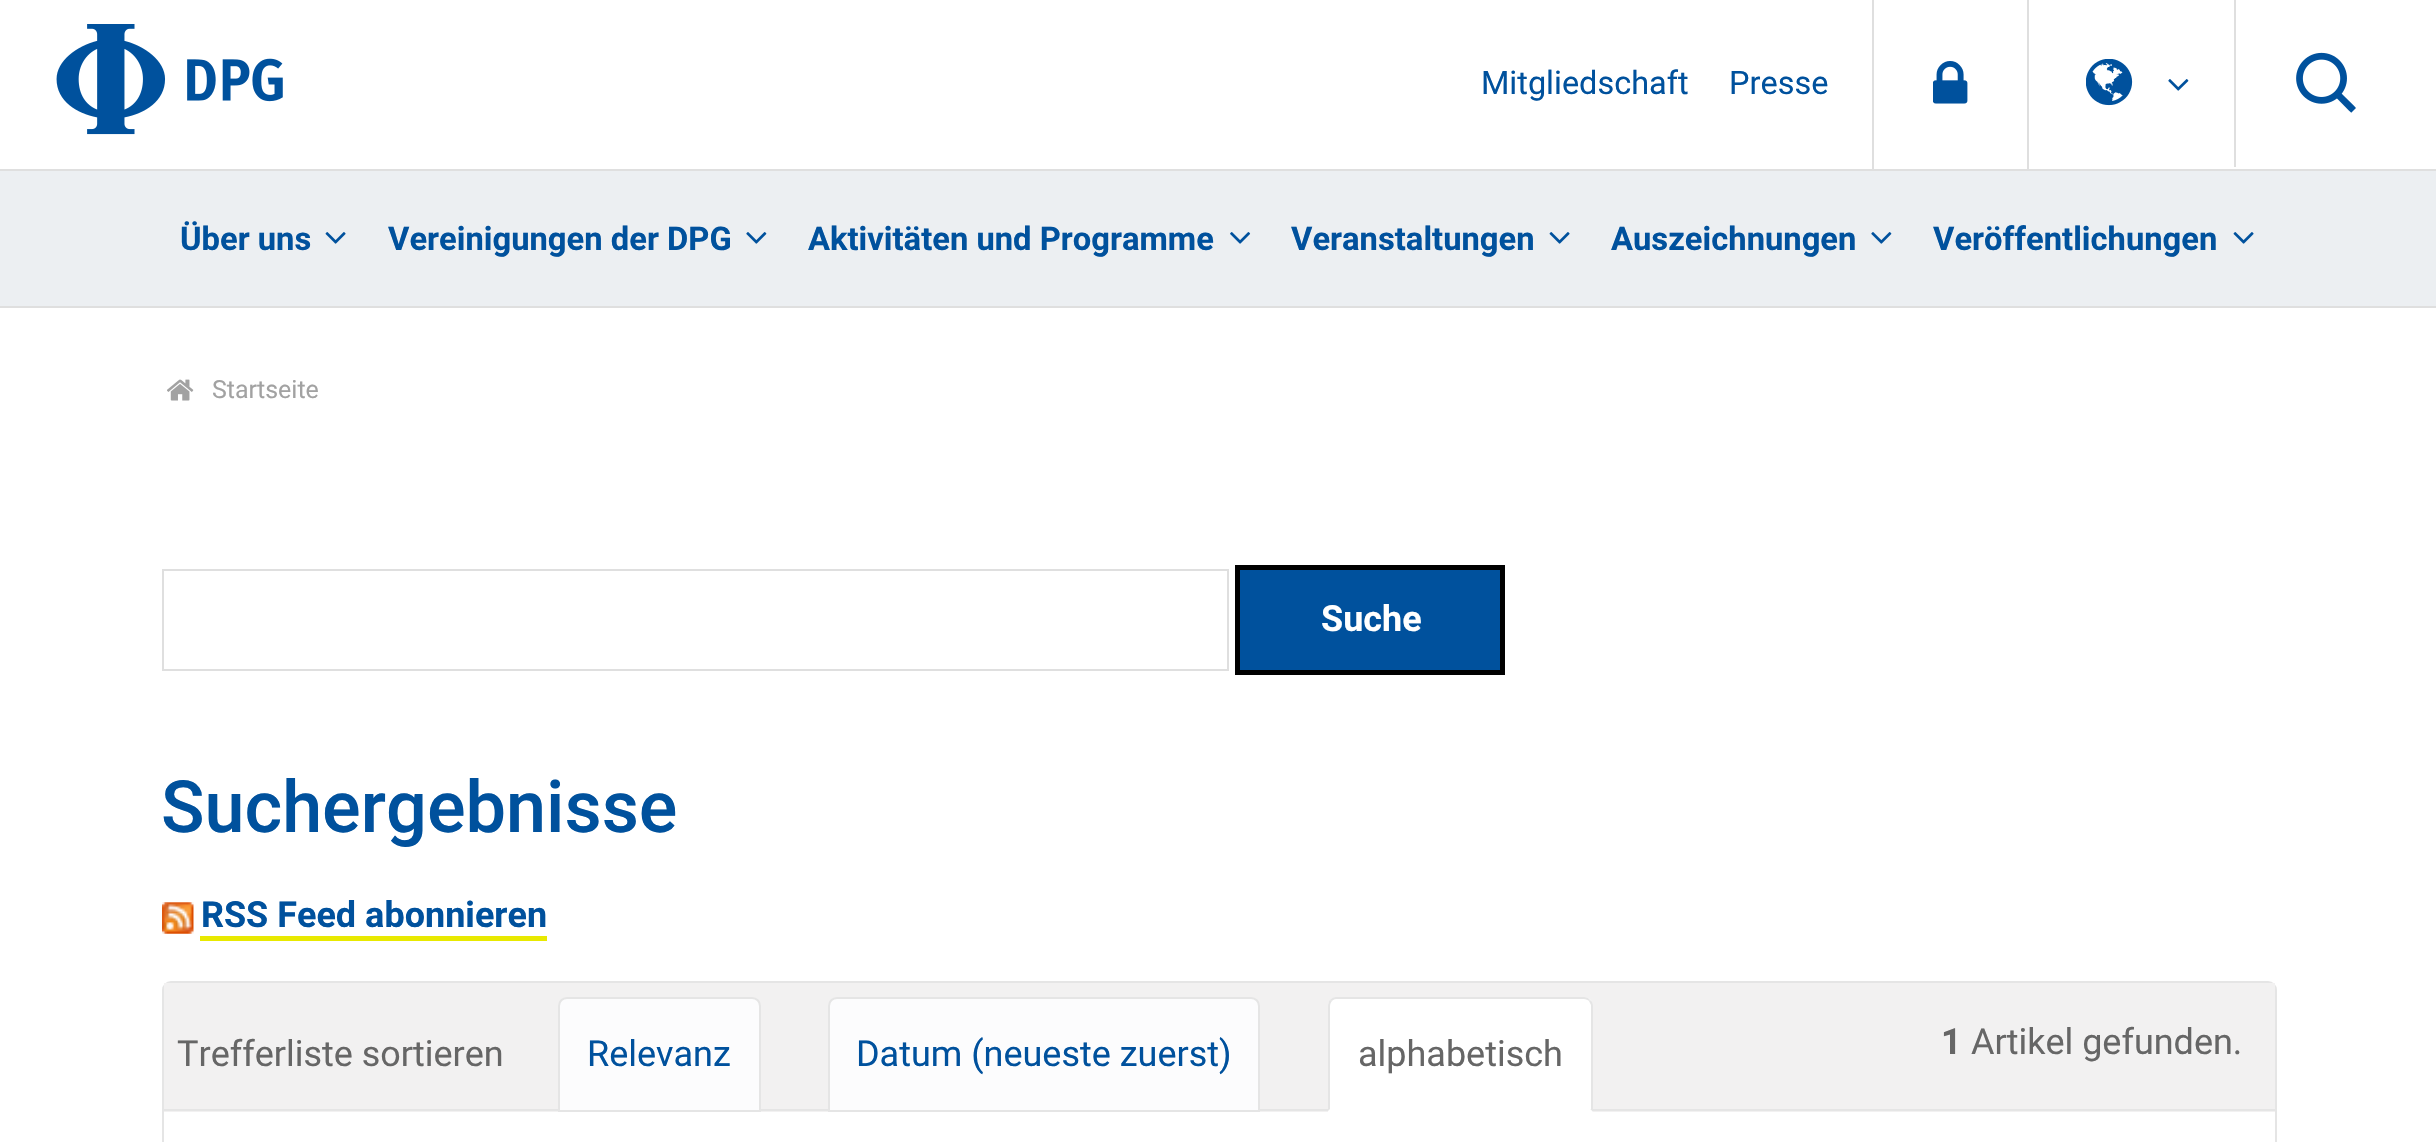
void draw(SkCanvas* canvas) {
	SkPaint paint;
	paint.setAntiAlias(true);
	auto svgPath = [&](const char* data, bool evenOdd = false) {
		SkPath result = *SkParsePath::FromSVGString(data);
		if (evenOdd) result.setFillType(SkPathFillType::kEvenOdd);
		return result;
	};
	canvas->clear(0xffffffff);
	paint.setColor(0xffdfdfdf);
	canvas->drawRect(SkRect::MakeXYWH(0, 169, 2436, 2), paint);
	canvas->drawImageRect(SkImages::DeferredFromEncodedData(SkData::MakeFromFileName("img1.png")), SkRect::MakeXYWH(56, 24, 227, 111), SkSamplingOptions());
	SkFont f1(fontMgr->matchFamilyStyle("Roboto", SkFontStyle::Normal()), 32.5);
	f1.setSubpixel(true);
	paint.setColor(0xff00519d);
	canvas->drawString("Mitgliedschaft", 1481, 94, f1, paint);
	canvas->drawString("Presse", 1729, 94, f1, paint);
	paint.setColor(0xffdfdfdf);
	canvas->drawRect(SkRect::MakeXYWH(1872, 0, 2, 169), paint);
	canvas->drawImageRect(SkImages::DeferredFromEncodedData(SkData::MakeFromFileName("img2.png")), SkRect::MakeXYWH(1933, 61, 35, 43), SkSamplingOptions());
	canvas->drawRect(SkRect::MakeXYWH(2027, 0, 2, 169), paint);
	canvas->drawImageRect(SkImages::DeferredFromEncodedData(SkData::MakeFromFileName("img3.png")), SkRect::MakeXYWH(2086, 59, 47, 47), SkSamplingOptions());
	canvas->drawImageRect(SkImages::DeferredFromEncodedData(SkData::MakeFromFileName("img4.png")), SkRect::MakeXYWH(2168, 79, 21, 12), SkSamplingOptions());
	canvas->drawRect(SkRect::MakeXYWH(2234, 0, 2, 167), paint);
	canvas->drawImageRect(SkImages::DeferredFromEncodedData(SkData::MakeFromFileName("img5.png")), SkRect::MakeXYWH(2296, 52, 60, 61), SkSamplingOptions());
	paint.setColor(0xffeceff2);
	canvas->drawRect(SkRect::MakeXYWH(0, 171, 2436, 135), paint);
	paint.setColor(0xffdfdfdf);
	canvas->drawRect(SkRect::MakeXYWH(0, 306, 2436, 2), paint);
	SkFont f2(fontMgr->matchFamilyStyle("Roboto", SkFontStyle::Bold()), 32.75);
	f2.setSubpixel(true);
	paint.setColor(0xff00519d);
	canvas->drawString("Über uns", 180, 250, f2, paint);
	canvas->drawImageRect(SkImages::DeferredFromEncodedData(SkData::MakeFromFileName("img6.png")), SkRect::MakeXYWH(325, 232, 21, 12), SkSamplingOptions());
	canvas->drawString("Vereinigungen der DPG", 388, 250, f2, paint);
	canvas->drawImageRect(SkImages::DeferredFromEncodedData(SkData::MakeFromFileName("img7.png")), SkRect::MakeXYWH(746, 232, 21, 12), SkSamplingOptions());
	canvas->drawString("Aktivitäten und Programme", 808, 250, f2, paint);
	canvas->drawImageRect(SkImages::DeferredFromEncodedData(SkData::MakeFromFileName("img8.png")), SkRect::MakeXYWH(1230, 232, 21, 12), SkSamplingOptions());
	canvas->drawString("Veranstaltungen", 1291, 250, f2, paint);
	canvas->drawImageRect(SkImages::DeferredFromEncodedData(SkData::MakeFromFileName("img6.png")), SkRect::MakeXYWH(1549, 232, 21, 12), SkSamplingOptions());
	canvas->drawString("Auszeichnungen", 1611, 250, f2, paint);
	canvas->drawImageRect(SkImages::DeferredFromEncodedData(SkData::MakeFromFileName("img7.png")), SkRect::MakeXYWH(1871, 232, 21, 12), SkSamplingOptions());
	canvas->drawString("Veröffentlichungen", 1933, 250, f2, paint);
	canvas->drawImageRect(SkImages::DeferredFromEncodedData(SkData::MakeFromFileName("img6.png")), SkRect::MakeXYWH(2233, 232, 21, 12), SkSamplingOptions());
	canvas->drawImageRect(SkImages::DeferredFromEncodedData(SkData::MakeFromFileName("img9.png")), SkRect::MakeXYWH(167, 379, 27, 22), SkSamplingOptions());
	SkFont f3(fontMgr->matchFamilyStyle("Roboto", SkFontStyle::Normal()), 25);
	f3.setSubpixel(true);
	paint.setColor(0xffa2a2a2);
	canvas->drawString("Startseite", 212, 398, f3, paint);
	paint.setStroke(true);
	paint.setStrokeWidth(2);
	paint.setColor(0xffdfdfdf);
	canvas->drawRect(SkRect::MakeXYWH(163, 570, 1065, 100), paint);
	paint.setStroke(false);
	paint.setColor(0xff00519d);
	canvas->drawRect(SkRect::MakeXYWH(1237.5, 567.5, 265, 105), paint);
	paint.setStroke(true);
	paint.setStrokeWidth(5);
	paint.setColor(0xff000000);
	canvas->drawRect(SkRect::MakeXYWH(1237.5, 567.5, 265, 105), paint);
	SkFont f4(fontMgr->matchFamilyStyle("Roboto", SkFontStyle::Bold()), 36);
	f4.setSubpixel(true);
	paint.setStroke(false);
	paint.setColor(0xffffffff);
	canvas->drawString("Suche", 1321, 631, f4, paint);
	SkFont f5(fontMgr->matchFamilyStyle("Roboto", SkFontStyle(500, SkFontStyle::kNormal_Width, SkFontStyle::kUpright_Slant)), 72);
	f5.setSubpixel(true);
	paint.setColor(0xff00519d);
	canvas->drawString("Suchergebnisse", 161, 832, f5, paint);
	canvas->drawImageRect(SkImages::DeferredFromEncodedData(SkData::MakeFromFileName("img10.png")), SkRect::MakeXYWH(162, 902, 32, 32), SkSamplingOptions());
	canvas->drawString("RSS Feed abonnieren", 201, 927, f4, paint);
	paint.setColor(0xffe8e900);
	canvas->drawRect(SkRect::MakeXYWH(200, 936, 347, 5), paint);
	paint.setStroke(true);
	paint.setStrokeWidth(2);
	paint.setColor(0xffe5e5e5);
	canvas->drawRoundRect(SkRect::MakeXYWH(163, 982, 2113, 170), 8, 8, paint);
	paint.setStroke(false);
	paint.setColor(0xfff2f1f1);
	canvas->drawRect(SkRect::MakeXYWH(164, 983, 2111, 129), paint);
	paint.setColor(0xffe5e5e5);
	canvas->drawRect(SkRect::MakeXYWH(164, 1109, 2111, 2), paint);
	SkFont f6(fontMgr->matchFamilyStyle("Roboto", SkFontStyle::Normal()), 36);
	f6.setSubpixel(true);
	paint.setColor(0xff666666);
	canvas->drawString("Trefferliste sortieren", 177, 1066, f6, paint);
	paint.setColor(0xfffcfcfd);
	canvas->drawPath(svgPath("M567 998H752C756.5 998 760 1001.5 760 1006V1111H559V1006C559 1001.5 562.5 998 567 998Z"), paint);
	paint.setStroke(true);
	paint.setColor(0xffe5e5e5);
	canvas->drawPath(svgPath("M567 998H752C756.5 998 760 1001.5 760 1006V1111H559V1006C559 1001.5 562.5 998 567 998Z"), paint);
	paint.setStroke(false);
	paint.setColor(0xff00519d);
	canvas->drawString("Relevanz", 587, 1066, f6, paint);
	paint.setColor(0xfffcfcfd);
	canvas->drawPath(svgPath("M837 998H1251C1255.5 998 1259 1001.5 1259 1006V1111H829V1006C829 1001.5 832.5 998 837 998Z"), paint);
	paint.setStroke(true);
	paint.setColor(0xffe5e5e5);
	canvas->drawPath(svgPath("M837 998H1251C1255.5 998 1259 1001.5 1259 1006V1111H829V1006C829 1001.5 832.5 998 837 998Z"), paint);
	paint.setStroke(false);
	paint.setColor(0xff00519d);
	canvas->drawString("Datum (neueste zuerst)", 856, 1066, f6, paint);
	paint.setColor(0xffffffff);
	canvas->drawPath(svgPath("M1337 997H1584C1589 997 1593 1001 1593 1006V1112H1328V1006C1328 1001 1332 997 1337 997Z"), paint);
	paint.setColor(0xffe5e5e5);
	canvas->drawPath(svgPath("M1336 997C1334 997 1332 998 1330 1000L1332 1001C1333 1000 1334 999 1336 999H1584C1586 999 1588 1000 1589 1001L1590 1000C1589 998 1586 997 1584 997Z"), paint);
	canvas->drawPath(svgPath("M1590 1000C1592 1001 1593 1003 1593 1006V1112L1590 1109H1591V1005L1589 1001Z"), paint);
	paint.setColor(0xffffffff);
	canvas->drawPath(svgPath("M1593 1112H1328L1330 1109H1590Z"), paint);
	paint.setColor(0xffe5e5e5);
	canvas->drawPath(svgPath("M1330 1000C1329 1001 1328 1004 1328 1006V1111L1330 1109V1006C1330 1004 1331 1002 1332 1001Z"), paint);
	paint.setColor(0xff666666);
	canvas->drawString("alphabetisch", 1358, 1066, f6, paint);
	canvas->drawString("1", 1941, 1054, f4, paint);
	canvas->drawString("Artikel gefunden.", 1971, 1054, f6, paint);
}
